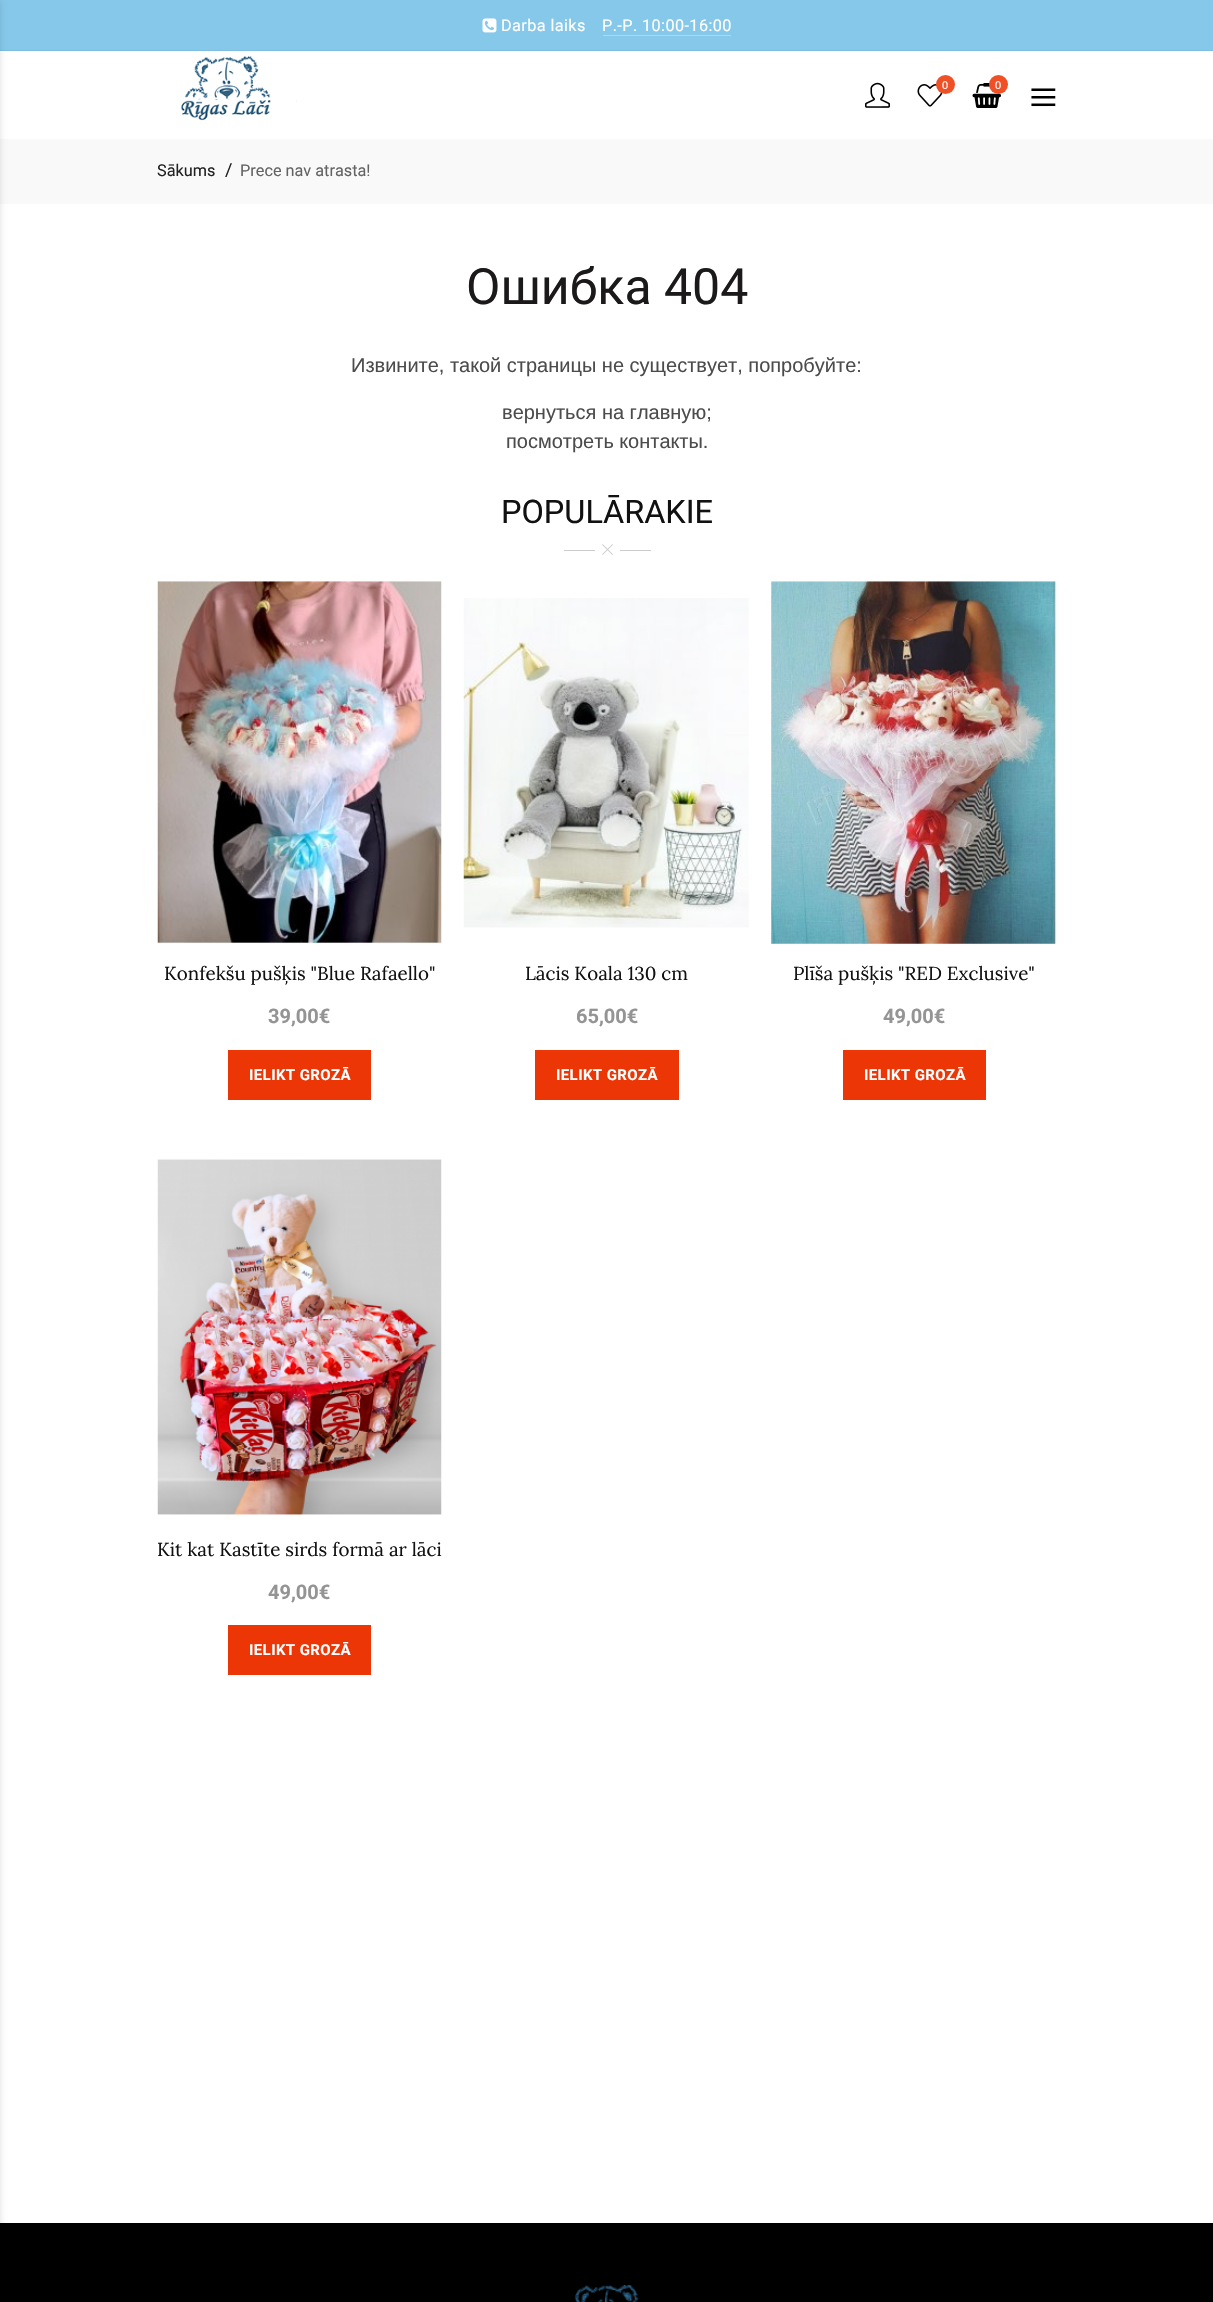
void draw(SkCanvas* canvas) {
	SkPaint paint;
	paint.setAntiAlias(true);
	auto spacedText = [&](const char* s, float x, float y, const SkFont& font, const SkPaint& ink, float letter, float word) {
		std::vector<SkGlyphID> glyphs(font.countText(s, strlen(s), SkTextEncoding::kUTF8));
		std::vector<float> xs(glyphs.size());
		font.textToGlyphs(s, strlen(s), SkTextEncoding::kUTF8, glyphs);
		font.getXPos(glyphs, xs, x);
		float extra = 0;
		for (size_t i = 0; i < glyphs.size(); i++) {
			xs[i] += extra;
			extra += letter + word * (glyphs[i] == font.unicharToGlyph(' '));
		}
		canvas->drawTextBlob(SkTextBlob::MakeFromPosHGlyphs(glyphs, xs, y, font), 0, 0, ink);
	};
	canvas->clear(0xffffffff);
	paint.setColor(0xff86c8ea);
	canvas->drawRect(SkRect::MakeXYWH(0, 0, 1213, 50), paint);
	paint.setColor(0xff7fbede);
	canvas->drawRect(SkRect::MakeXYWH(0, 50, 1213, 1), paint);
	paint.setColor(0xfff9f9f9);
	canvas->drawRect(SkRect::MakeXYWH(0, 139, 1213, 65), paint);
	paint.setColor(0xff000000);
	canvas->drawRect(SkRect::MakeXYWH(0, 2223, 1213, 79), paint);
	paint.setColor(0x21000000);
	paint.setMaskFilter(SkMaskFilter::MakeBlur(kNormal_SkBlurStyle, 3));
	canvas->drawRect(SkRect::MakeXYWH(-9, 1, 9, 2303), paint);
	paint.setMaskFilter(nullptr);
	canvas->drawImageRect(SkImages::DeferredFromEncodedData(SkData::MakeFromFileName("img1.png")), SkRect::MakeXYWH(482, 18, 15, 15), SkSamplingOptions());
	SkFont f1(fontMgr->matchFamilyStyle("Roboto", SkFontStyle::Normal()), 16.25);
	f1.setSubpixel(true);
	paint.setColor(0xffffffff);
	spacedText("Darba laiks", 501, 31, f1, paint, 0.4, 0);
	spacedText("P.-P. 10:00-16:00", 602, 31, f1, paint, 0.4, 0);
	paint.setColor(0xffaad9f0);
	canvas->drawRect(SkRect::MakeXYWH(603, 35, 128, 1), paint);
	canvas->drawImageRect(SkImages::DeferredFromEncodedData(SkData::MakeFromFileName("img2.png")), SkRect::MakeXYWH(181, 56, 116, 65), SkSamplingOptions());
	canvas->drawImageRect(SkImages::DeferredFromEncodedData(SkData::MakeFromFileName("img3.png")), SkRect::MakeXYWH(865, 82, 25, 26), SkSamplingOptions());
	canvas->drawImageRect(SkImages::DeferredFromEncodedData(SkData::MakeFromFileName("img4.png")), SkRect::MakeXYWH(917, 84, 26, 23), SkSamplingOptions());
	paint.setColor(0xffef5026);
	canvas->drawCircle(945.5, 84.5, 9.5, paint);
	SkFont f2(fontMgr->matchFamilyStyle("Liberation Sans", SkFontStyle::Normal()), 11);
	f2.setSubpixel(true);
	paint.setColor(0xffffffff);
	canvas->drawString("0", 942, 89, f2, paint);
	canvas->drawImageRect(SkImages::DeferredFromEncodedData(SkData::MakeFromFileName("img5.png")), SkRect::MakeXYWH(972, 83, 29, 25), SkSamplingOptions());
	paint.setColor(0xffef5026);
	canvas->drawCircle(998.5, 84.5, 9.5, paint);
	paint.setColor(0xffffffff);
	canvas->drawString("0", 995, 89, f2, paint);
	canvas->drawImageRect(SkImages::DeferredFromEncodedData(SkData::MakeFromFileName("img6.png")), SkRect::MakeXYWH(1031, 88, 25, 19), SkSamplingOptions());
	paint.setColor(0xff222222);
	canvas->drawString("Sākums", 157, 176, f1, paint);
	SkFont f3(fontMgr->matchFamilyStyle("Roboto", SkFontStyle::Normal()), 18);
	f3.setSubpixel(true);
	canvas->drawString("/", 225, 176, f3, paint);
	paint.setColor(0xff636363);
	canvas->drawString("Prece nav atrasta!", 240, 176, f1, paint);
	SkFont f4(fontMgr->matchFamilyStyle("Roboto", SkFontStyle::Normal()), 50);
	f4.setSubpixel(true);
	paint.setColor(0xff1b1919);
	canvas->drawString("Ошибка 404", 466, 304, f4, paint);
	SkFont f5(fontMgr->matchFamilyStyle("Liberation Sans", SkFontStyle::Normal()), 20);
	f5.setSubpixel(true);
	paint.setColor(0xff4c4c4c);
	canvas->drawString("Извините, такой страницы не существует, попробуйте:", 351, 372, f5, paint);
	canvas->drawString("вернуться на главную;", 502, 419, f5, paint);
	canvas->drawString("посмотреть контакты.", 506, 448, f5, paint);
	SkFont f6(fontMgr->matchFamilyStyle("Roboto", SkFontStyle::Normal()), 32.5);
	f6.setSubpixel(true);
	paint.setColor(0xff111111);
	canvas->drawString("POPULĀRAKIE", 501, 523, f6, paint);
	paint.setColor(0xffcccccc);
	canvas->drawRect(SkRect::MakeXYWH(564, 550, 31, 1), paint);
	canvas->drawImageRect(SkImages::DeferredFromEncodedData(SkData::MakeFromFileName("img7.png")), SkRect::MakeXYWH(602, 544, 11, 11), SkSamplingOptions());
	canvas->drawRect(SkRect::MakeXYWH(620, 550, 31, 1), paint);
	canvas->drawImageRect(SkImages::DeferredFromEncodedData(SkData::MakeFromFileName("img8.png")), SkRect::MakeXYWH(157, 581, 285, 363), SkSamplingOptions());
	SkFont f7(fontMgr->matchFamilyStyle("Lora", SkFontStyle::Normal()), 18.75);
	f7.setSubpixel(true);
	paint.setColor(0xff111111);
	canvas->drawString("Konfekšu pušķis \"Blue Rafaello\"", 164, 980, f7, paint);
	SkFont f8(fontMgr->matchFamilyStyle("Roboto", SkFontStyle::Bold()), 20);
	f8.setSubpixel(true);
	paint.setColor(0xff949494);
	canvas->drawString("39,00€", 268, 1023, f8, paint);
	paint.setColor(0xffec3606);
	canvas->drawRect(SkRect::MakeXYWH(228, 1050, 143, 50), paint);
	SkFont f9(fontMgr->matchFamilyStyle("Roboto", SkFontStyle::Bold()), 15);
	f9.setSubpixel(true);
	paint.setColor(0xffffffff);
	spacedText("IELIKT GROZĀ", 249, 1080, f9, paint, 0.4, 0);
	canvas->drawImageRect(SkImages::DeferredFromEncodedData(SkData::MakeFromFileName("img9.png")), SkRect::MakeXYWH(463, 598, 286, 330), SkSamplingOptions());
	paint.setColor(0xff111111);
	canvas->drawString("Lācis Koala 130 cm", 525, 980, f7, paint);
	paint.setColor(0xff949494);
	canvas->drawString("65,00€", 576, 1023, f8, paint);
	paint.setColor(0xffec3606);
	canvas->drawRect(SkRect::MakeXYWH(535, 1050, 144, 50), paint);
	paint.setColor(0xffffffff);
	spacedText("IELIKT GROZĀ", 556, 1080, f9, paint, 0.4, 0);
	canvas->drawImageRect(SkImages::DeferredFromEncodedData(SkData::MakeFromFileName("img10.png")), SkRect::MakeXYWH(771, 581, 286, 363), SkSamplingOptions());
	paint.setColor(0xff111111);
	canvas->drawString("Plīša pušķis \"RED Exclusive\"", 793, 980, f7, paint);
	paint.setColor(0xff949494);
	canvas->drawString("49,00€", 883, 1023, f8, paint);
	paint.setColor(0xffec3606);
	canvas->drawRect(SkRect::MakeXYWH(843, 1050, 143, 50), paint);
	paint.setColor(0xffffffff);
	spacedText("IELIKT GROZĀ", 864, 1080, f9, paint, 0.4, 0);
	canvas->drawImageRect(SkImages::DeferredFromEncodedData(SkData::MakeFromFileName("img11.png")), SkRect::MakeXYWH(157, 1159, 285, 356), SkSamplingOptions());
	paint.setColor(0xff111111);
	canvas->drawString("Kit kat Kastīte sirds formā ar lāci", 157, 1556, f7, paint);
	paint.setColor(0xff949494);
	canvas->drawString("49,00€", 268, 1599, f8, paint);
	paint.setColor(0xffec3606);
	canvas->drawRect(SkRect::MakeXYWH(228, 1625, 143, 50), paint);
	paint.setColor(0xffffffff);
	spacedText("IELIKT GROZĀ", 249, 1655, f9, paint, 0.4, 0);
	canvas->drawImageRect(SkImages::DeferredFromEncodedData(SkData::MakeFromFileName("img12.png")), SkRect::MakeXYWH(574, 2285, 65, 17), SkSamplingOptions());
}
